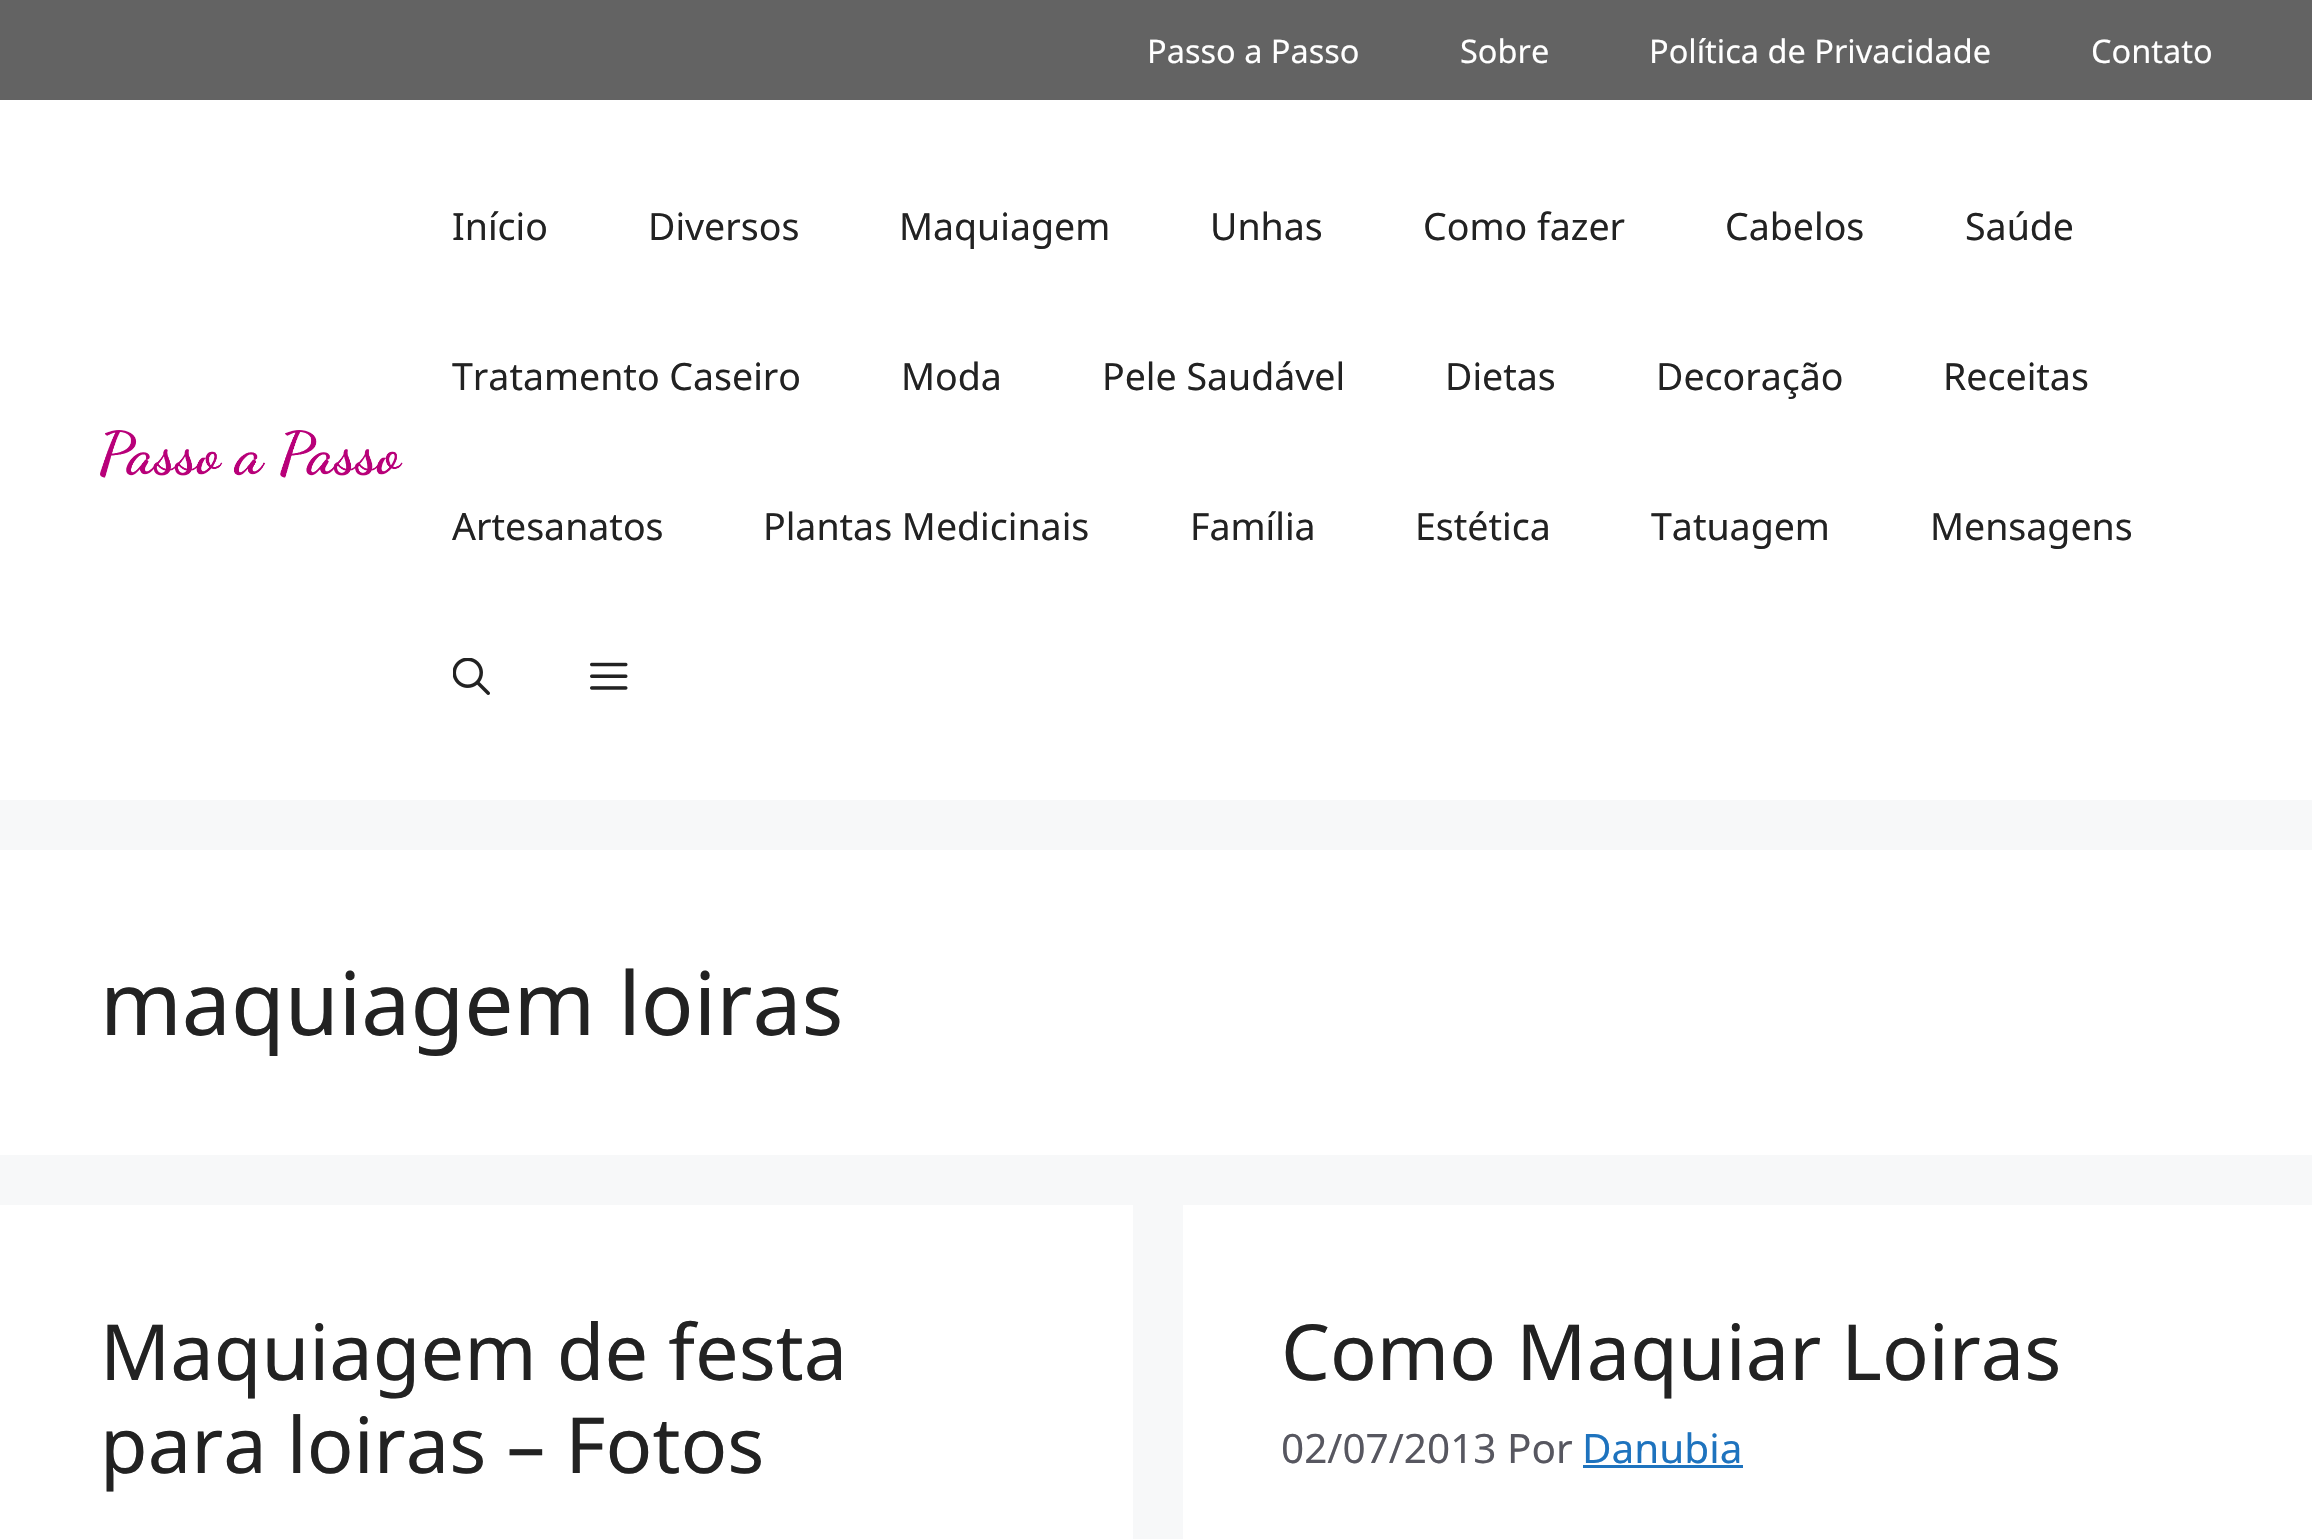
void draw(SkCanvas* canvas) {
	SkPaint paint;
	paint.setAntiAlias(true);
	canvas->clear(0xfff7f8f9);
	paint.setColor(0xff636363);
	canvas->drawRect(SkRect::MakeXYWH(0, 0, 2312, 100), paint);
	SkFont f1(fontMgr->matchFamilyStyle("Noto Sans", SkFontStyle::Normal()), 32.5);
	f1.setSubpixel(true);
	paint.setColor(0xffffffff);
	canvas->drawString("Passo a Passo", 1147, 63, f1, paint);
	canvas->drawString("Sobre", 1460, 63, f1, paint);
	canvas->drawString("Política de Privacidade", 1649, 63, f1, paint);
	canvas->drawString("Contato", 2091, 63, f1, paint);
	canvas->drawRect(SkRect::MakeXYWH(0, 100, 2312, 700), paint);
	canvas->drawImageRect(SkImages::DeferredFromEncodedData(SkData::MakeFromFileName("img1.png")), SkRect::MakeXYWH(100, 430, 303, 48), SkSamplingOptions());
	SkFont f2(fontMgr->matchFamilyStyle("Noto Sans", SkFontStyle::Normal()), 37.5);
	f2.setSubpixel(true);
	paint.setColor(0xff222222);
	canvas->drawString("Início", 452, 240, f2, paint);
	canvas->drawString("Diversos", 648, 240, f2, paint);
	canvas->drawString("Maquiagem", 899, 240, f2, paint);
	canvas->drawString("Unhas", 1210, 240, f2, paint);
	canvas->drawString("Como fazer", 1423, 240, f2, paint);
	canvas->drawString("Cabelos", 1725, 240, f2, paint);
	canvas->drawString("Saúde", 1965, 240, f2, paint);
	canvas->drawString("Tratamento Caseiro", 452, 390, f2, paint);
	canvas->drawString("Moda", 901, 390, f2, paint);
	canvas->drawString("Pele Saudável", 1102, 390, f2, paint);
	canvas->drawString("Dietas", 1445, 390, f2, paint);
	canvas->drawString("Decoração", 1656, 390, f2, paint);
	canvas->drawString("Receitas", 1943, 390, f2, paint);
	canvas->drawString("Artesanatos", 452, 540, f2, paint);
	canvas->drawString("Plantas Medicinais", 763, 540, f2, paint);
	canvas->drawString("Família", 1190, 540, f2, paint);
	canvas->drawString("Estética", 1415, 540, f2, paint);
	canvas->drawString("Tatuagem", 1651, 540, f2, paint);
	canvas->drawString("Mensagens", 1930, 540, f2, paint);
	canvas->drawImageRect(SkImages::DeferredFromEncodedData(SkData::MakeFromFileName("img2.png")), SkRect::MakeXYWH(453, 658, 37, 37), SkSamplingOptions());
	canvas->drawImageRect(SkImages::DeferredFromEncodedData(SkData::MakeFromFileName("img3.png")), SkRect::MakeXYWH(590, 662, 38, 28), SkSamplingOptions());
	paint.setColor(0xffffffff);
	canvas->drawRect(SkRect::MakeXYWH(0, 850, 2312, 305), paint);
	SkFont f3(fontMgr->matchFamilyStyle("Noto Sans", SkFontStyle::Normal()), 87.5);
	f3.setSubpixel(true);
	paint.setColor(0xff222222);
	canvas->drawString("maquiagem loiras", 100, 1035, f3, paint);
	paint.setColor(0xffffffff);
	canvas->drawRect(SkRect::MakeXYWH(0, 1205, 1133, 334), paint);
	SkFont f4(fontMgr->matchFamilyStyle("Noto Sans", SkFontStyle::Normal()), 77.5);
	f4.setSubpixel(true);
	paint.setColor(0xff222222);
	canvas->drawString("Maquiagem de festa", 100, 1380, f4, paint);
	canvas->drawString("para loiras – Fotos", 100, 1473, f4, paint);
	paint.setColor(0xffffffff);
	canvas->drawRect(SkRect::MakeXYWH(1183, 1205, 1129, 334), paint);
	paint.setColor(0xff222222);
	canvas->drawString("Como Maquiar Loiras", 1281, 1380, f4, paint);
	SkFont f5(fontMgr->matchFamilyStyle("Noto Sans", SkFontStyle::Normal()), 40.5);
	f5.setSubpixel(true);
	paint.setColor(0xff575760);
	canvas->drawString("02/07/2013 Por", 1281, 1463, f5, paint);
	paint.setColor(0xff1e73be);
	canvas->drawString("Danubia", 1582, 1463, f5, paint);
	canvas->drawRect(SkRect::MakeXYWH(1583, 1465, 160, 3), paint);
}
